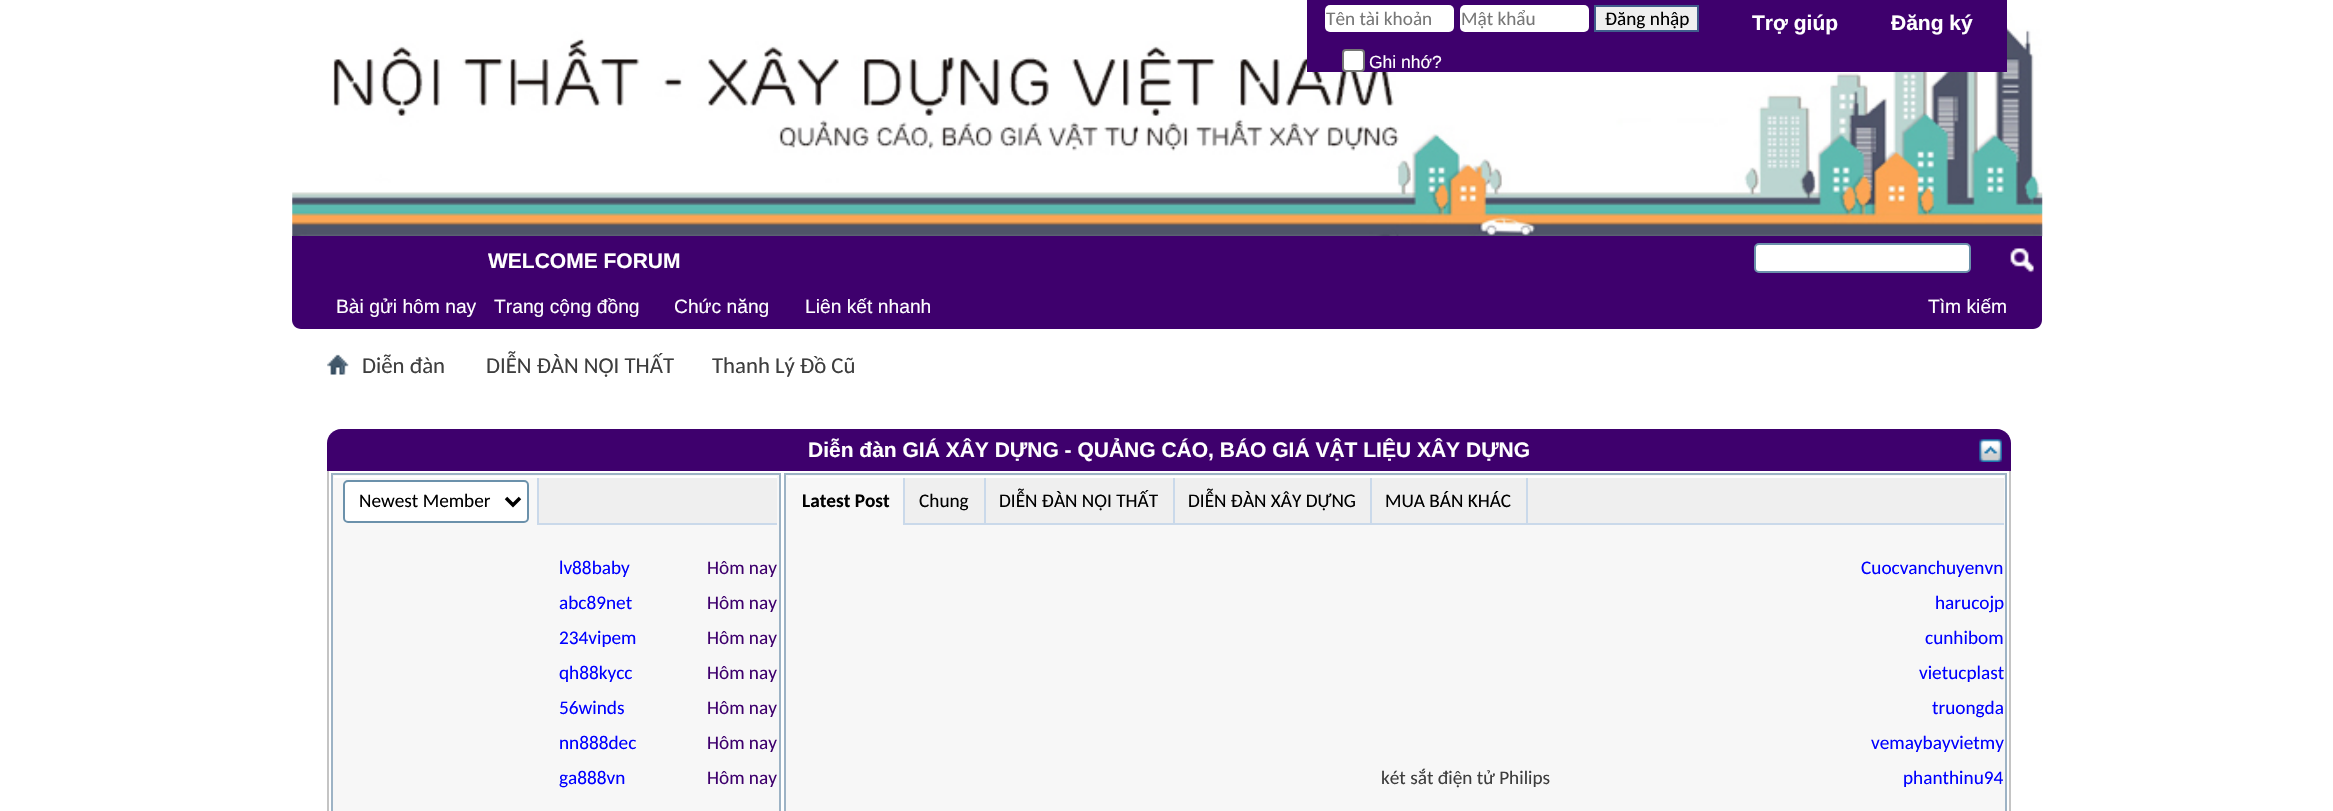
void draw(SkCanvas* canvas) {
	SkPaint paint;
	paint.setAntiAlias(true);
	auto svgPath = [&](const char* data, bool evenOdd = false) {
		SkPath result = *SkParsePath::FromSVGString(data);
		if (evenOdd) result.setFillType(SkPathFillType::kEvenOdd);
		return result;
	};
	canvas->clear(0xffffffff);
	canvas->drawImageRect(SkImages::DeferredFromEncodedData(SkData::MakeFromFileName("img1.png")), SkRect::MakeXYWH(292, 0, 1751, 237), SkSamplingOptions());
	paint.setColor(0xff3e006d);
	canvas->drawRect(SkRect::MakeXYWH(1307, 0, 700, 72), paint);
	paint.setColor(0xffffffff);
	canvas->drawRoundRect(SkRect::MakeXYWH(1325, 5, 129, 27), 5, 5, paint);
	SkFont f1(fontMgr->matchFamilyStyle("Carlito", SkFontStyle::Normal()), 19.25);
	f1.setSubpixel(true);
	paint.setColor(0xff777777);
	canvas->drawString("Tên tài khoản", 1326, 25, f1, paint);
	paint.setColor(0xffffffff);
	canvas->drawRoundRect(SkRect::MakeXYWH(1460, 5, 129, 27), 5, 5, paint);
	paint.setColor(0xff777777);
	canvas->drawString("Mật khẩu", 1461, 25, f1, paint);
	paint.setColor(0xffefefef);
	canvas->drawRect(SkRect::MakeXYWH(1595, 6, 103, 25), paint);
	paint.setStroke(true);
	paint.setStrokeWidth(2);
	paint.setColor(0xff415d8d);
	canvas->drawRect(SkRect::MakeXYWH(1595, 6, 103, 25), paint);
	paint.setStroke(false);
	paint.setColor(0xff000000);
	canvas->drawString("Ðăng nhập", 1605, 25, f1, paint);
	paint.setColor(0xffffffff);
	canvas->drawRoundRect(SkRect::MakeXYWH(1343, 50, 21, 21), 3, 3, paint);
	paint.setStroke(true);
	paint.setColor(0xff767676);
	canvas->drawRoundRect(SkRect::MakeXYWH(1343, 50, 21, 21), 3, 3, paint);
	SkFont f2(fontMgr->matchFamilyStyle("Liberation Sans", SkFontStyle::Normal()), 17.5);
	f2.setSubpixel(true);
	paint.setStroke(false);
	paint.setColor(0xffffffff);
	canvas->drawString("Ghi nhớ?", 1369, 68, f2, paint);
	SkFont f3(fontMgr->matchFamilyStyle("Liberation Sans", SkFontStyle::Bold()), 21);
	f3.setSubpixel(true);
	canvas->drawString("Trợ giúp", 1752, 30, f3, paint);
	canvas->drawString("Đăng ký", 1891, 30, f3, paint);
	paint.setColor(0xff3e006d);
	canvas->drawPath(svgPath("M292 236H2042V320C2042 325 2038 329 2033 329H301C296 329 292 325 292 320Z"), paint);
	paint.setColor(0xffffffff);
	canvas->drawString("WELCOME FORUM", 488, 268, f3, paint);
	SkFont f4(fontMgr->matchFamilyStyle("Liberation Sans", SkFontStyle::Normal()), 19.25);
	f4.setSubpixel(true);
	canvas->drawString("Bài gửi hôm nay", 336, 313, f4, paint);
	canvas->drawString("Trang cộng đồng", 494, 313, f4, paint);
	canvas->drawString("Chức năng", 674, 313, f4, paint);
	canvas->drawString("Liên kết nhanh", 805, 313, f4, paint);
	canvas->drawRoundRect(SkRect::MakeXYWH(1755, 244, 215, 28), 4, 4, paint);
	paint.setStroke(true);
	paint.setColor(0xff6b91ab);
	canvas->drawRoundRect(SkRect::MakeXYWH(1755, 244, 215, 28), 4, 4, paint);
	canvas->drawImageRect(SkImages::DeferredFromEncodedData(SkData::MakeFromFileName("img2.png")), SkRect::MakeXYWH(2010, 248, 24, 25), SkSamplingOptions());
	paint.setStroke(false);
	paint.setColor(0xffffffff);
	canvas->drawString("Tìm kiếm", 1928, 313, f4, paint);
	canvas->drawImageRect(SkImages::DeferredFromEncodedData(SkData::MakeFromFileName("img3.png")), SkRect::MakeXYWH(327, 354, 22, 21), SkSamplingOptions());
	SkFont f5(fontMgr->matchFamilyStyle("Carlito", SkFontStyle::Normal()), 22.75);
	f5.setSubpixel(true);
	paint.setColor(0xff3e3e3e);
	canvas->drawString("Diễn đàn", 362, 373, f5, paint);
	canvas->drawString("DIỄN ĐÀN NỘI THẤT", 486, 373, f5, paint);
	canvas->drawString("Thanh Lý Đồ Cũ", 712, 373, f5, paint);
	paint.setColor(0xff3e006d);
	canvas->drawPath(svgPath("M341 429H1997C2004.5 429 2011 435.5 2011 443V471H327V443C327 435.5 333.5 429 341 429Z"), paint);
	paint.setColor(0xffffffff);
	canvas->drawString("Diễn đàn GIÁ XÂY DỰNG - QUẢNG CÁO, BÁO GIÁ VẬT LIỆU XÂY DỰNG", 808, 457, f3, paint);
	canvas->drawImageRect(SkImages::DeferredFromEncodedData(SkData::MakeFromFileName("img4.png")), SkRect::MakeXYWH(1979, 439, 23, 23), SkSamplingOptions());
	paint.setColor(0xffc4c4c4);
	canvas->drawRect(SkRect::MakeXYWH(2009, 471, 2, 340), paint);
	canvas->drawRect(SkRect::MakeXYWH(327, 471, 2, 340), paint);
	paint.setColor(0xfff7f7f7);
	canvas->drawRect(SkRect::MakeXYWH(332, 474, 448, 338), paint);
	paint.setStroke(true);
	paint.setColor(0xff9db3c5);
	canvas->drawRect(SkRect::MakeXYWH(332, 474, 448, 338), paint);
	paint.setStroke(false);
	paint.setColor(0xffefefef);
	canvas->drawRect(SkRect::MakeXYWH(539, 478, 238, 45), paint);
	paint.setColor(0xffffffff);
	canvas->drawRect(SkRect::MakeXYWH(334, 476, 443, 2), paint);
	paint.setColor(0xffcad9ea);
	canvas->drawRect(SkRect::MakeXYWH(539, 523, 238, 2), paint);
	canvas->drawRect(SkRect::MakeXYWH(537, 478, 2, 47), paint);
	paint.setColor(0xffffffff);
	canvas->drawRoundRect(SkRect::MakeXYWH(344, 481, 184, 41), 4, 4, paint);
	paint.setStroke(true);
	paint.setColor(0xff6b91ab);
	canvas->drawRoundRect(SkRect::MakeXYWH(344, 481, 184, 41), 4, 4, paint);
	paint.setStrokeWidth(3.5);
	paint.setColor(0xff000000);
	canvas->drawPath(svgPath("M506 498L513 505L520 498"), paint);
	paint.setStroke(false);
	canvas->drawString("Newest Member", 359, 507, f1, paint);
	paint.setColor(0xff0000ff);
	canvas->drawString("lv88baby", 559, 574, f1, paint);
	paint.setColor(0xff3e006d);
	canvas->drawString("Hôm nay", 707, 574, f1, paint);
	paint.setColor(0xff0000ff);
	canvas->drawString("abc89net", 559, 609, f1, paint);
	paint.setColor(0xff3e006d);
	canvas->drawString("Hôm nay", 707, 609, f1, paint);
	paint.setColor(0xff0000ff);
	canvas->drawString("234vipem", 559, 644, f1, paint);
	paint.setColor(0xff3e006d);
	canvas->drawString("Hôm nay", 707, 644, f1, paint);
	paint.setColor(0xff0000ff);
	canvas->drawString("qh88kycc", 559, 679, f1, paint);
	paint.setColor(0xff3e006d);
	canvas->drawString("Hôm nay", 707, 679, f1, paint);
	paint.setColor(0xff0000ff);
	canvas->drawString("56winds", 559, 714, f1, paint);
	paint.setColor(0xff3e006d);
	canvas->drawString("Hôm nay", 707, 714, f1, paint);
	paint.setColor(0xff0000ff);
	canvas->drawString("nn888dec", 559, 749, f1, paint);
	paint.setColor(0xff3e006d);
	canvas->drawString("Hôm nay", 707, 749, f1, paint);
	paint.setColor(0xff0000ff);
	canvas->drawString("ga888vn", 559, 784, f1, paint);
	paint.setColor(0xff3e006d);
	canvas->drawString("Hôm nay", 707, 784, f1, paint);
	paint.setColor(0xfff7f7f7);
	canvas->drawRect(SkRect::MakeXYWH(785, 474, 1221, 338), paint);
	paint.setStroke(true);
	paint.setStrokeWidth(2);
	paint.setColor(0xff9db3c5);
	canvas->drawRect(SkRect::MakeXYWH(785, 474, 1221, 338), paint);
	paint.setStroke(false);
	paint.setColor(0xffefefef);
	canvas->drawRect(SkRect::MakeXYWH(905, 478, 1099, 45), paint);
	paint.setColor(0xffffffff);
	canvas->drawRect(SkRect::MakeXYWH(788, 476, 1216, 2), paint);
	paint.setColor(0xffcad9ea);
	canvas->drawRect(SkRect::MakeXYWH(905, 523, 1099, 2), paint);
	canvas->drawRect(SkRect::MakeXYWH(903, 478, 2, 47), paint);
	SkFont f6(fontMgr->matchFamilyStyle("Carlito", SkFontStyle::Bold()), 19.25);
	f6.setSubpixel(true);
	paint.setColor(0xff000000);
	canvas->drawString("Latest Post", 802, 507, f6, paint);
	paint.setColor(0xffcad9ea);
	canvas->drawRect(SkRect::MakeXYWH(984, 478, 2, 47), paint);
	paint.setColor(0xff000000);
	canvas->drawString("Chung", 919, 507, f1, paint);
	paint.setColor(0xffcad9ea);
	canvas->drawRect(SkRect::MakeXYWH(1173, 478, 2, 47), paint);
	paint.setColor(0xff000000);
	canvas->drawString("DIỄN ĐÀN NỘI THẤT", 999, 507, f1, paint);
	paint.setColor(0xffcad9ea);
	canvas->drawRect(SkRect::MakeXYWH(1370, 478, 2, 47), paint);
	paint.setColor(0xff000000);
	canvas->drawString("DIỄN ĐÀN XÂY DỰNG", 1188, 507, f1, paint);
	paint.setColor(0xffcad9ea);
	canvas->drawRect(SkRect::MakeXYWH(1526, 478, 2, 47), paint);
	paint.setColor(0xff000000);
	canvas->drawString("MUA BÁN KHÁC", 1385, 507, f1, paint);
	paint.setColor(0xff0000ff);
	canvas->drawString("Cuocvanchuyenvn", 1861, 574, f1, paint);
	canvas->drawString("harucojp", 1935, 609, f1, paint);
	canvas->drawString("cunhibom", 1925, 644, f1, paint);
	canvas->drawString("vietucplast", 1919, 679, f1, paint);
	canvas->drawString("truongda", 1932, 714, f1, paint);
	canvas->drawString("vemaybayvietmy", 1871, 749, f1, paint);
	paint.setColor(0xff3e3e3e);
	canvas->drawString("két sắt điện tử Philips", 1381, 784, f1, paint);
	paint.setColor(0xff0000ff);
	canvas->drawString("phanthinu94", 1903, 784, f1, paint);
}
